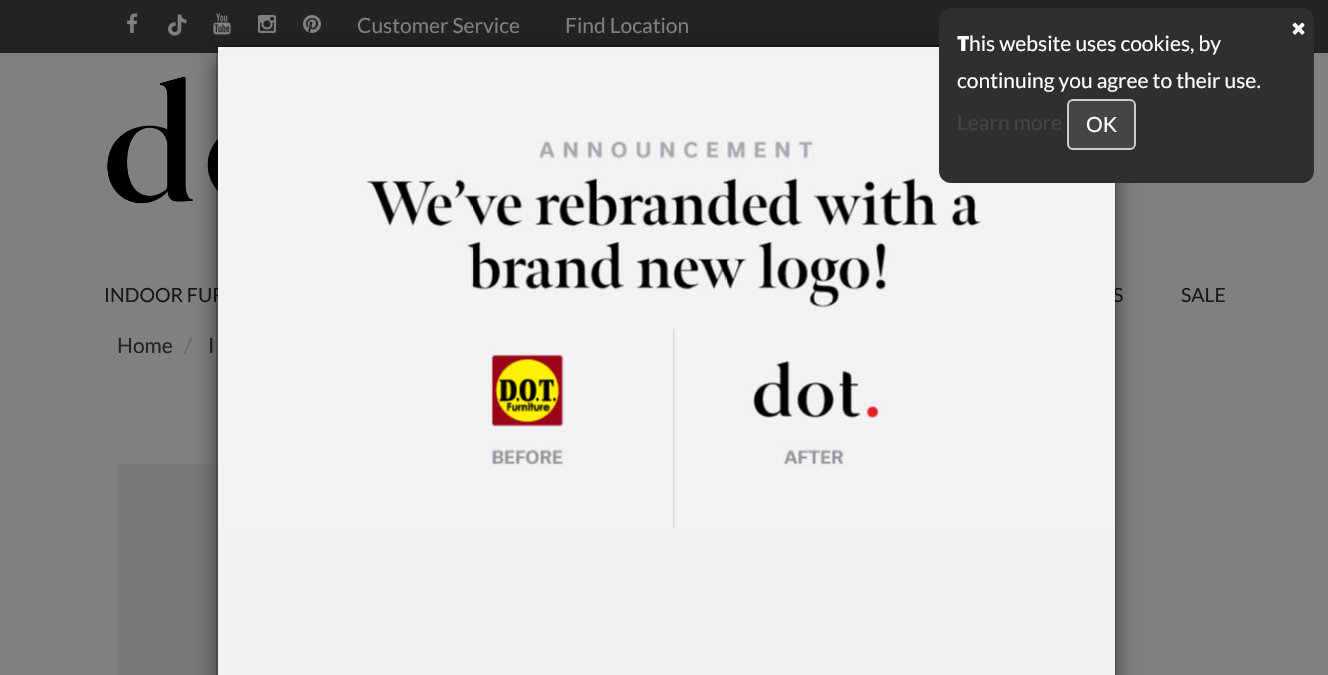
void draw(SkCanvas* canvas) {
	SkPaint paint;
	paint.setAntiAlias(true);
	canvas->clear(0xff808080);
	paint.setColor(0xff242222);
	canvas->drawRect(SkRect::MakeXYWH(0, 0, 1328, 53), paint);
	canvas->drawImageRect(SkImages::DeferredFromEncodedData(SkData::MakeFromFileName("img1.png")), SkRect::MakeXYWH(127, 13, 11, 20), SkSamplingOptions());
	canvas->drawImageRect(SkImages::DeferredFromEncodedData(SkData::MakeFromFileName("img2.png")), SkRect::MakeXYWH(168, 14, 19, 22), SkSamplingOptions());
	canvas->drawImageRect(SkImages::DeferredFromEncodedData(SkData::MakeFromFileName("img3.png")), SkRect::MakeXYWH(213, 13, 18, 22), SkSamplingOptions());
	canvas->drawImageRect(SkImages::DeferredFromEncodedData(SkData::MakeFromFileName("img4.png")), SkRect::MakeXYWH(258, 15, 18, 18), SkSamplingOptions());
	canvas->drawImageRect(SkImages::DeferredFromEncodedData(SkData::MakeFromFileName("img5.png")), SkRect::MakeXYWH(303, 15, 18, 18), SkSamplingOptions());
	SkFont f1(fontMgr->matchFamilyStyle("Lato", SkFontStyle::Normal()), 21);
	f1.setSubpixel(true);
	paint.setColor(0xff808080);
	canvas->drawString("Customer Service", 357, 33, f1, paint);
	canvas->drawString("Find Location", 565, 33, f1, paint);
	canvas->drawImageRect(SkImages::DeferredFromEncodedData(SkData::MakeFromFileName("img6.png")), SkRect::MakeXYWH(107, 76, 111, 128), SkSamplingOptions());
	SkFont f2(fontMgr->matchFamilyStyle("Lato", SkFontStyle::Normal()), 19.5);
	f2.setSubpixel(true);
	paint.setColor(0xff171915);
	canvas->drawString("INDOOR FUR", 104, 302, f2, paint);
	canvas->drawString("S", 1113, 302, f2, paint);
	canvas->drawString("SALE", 1181, 302, f2, paint);
	paint.setColor(0xff242222);
	canvas->drawString("Home", 117, 353, f1, paint);
	paint.setColor(0xff666666);
	canvas->drawString("/", 184, 353, f1, paint);
	paint.setColor(0xff242222);
	canvas->drawString("I", 208, 353, f1, paint);
	paint.setColor(0xff78797b);
	canvas->drawRect(SkRect::MakeXYWH(117, 464, 101, 211), paint);
	paint.setColor(0x80000000);
	paint.setMaskFilter(SkMaskFilter::MakeBlur(kNormal_SkBlurStyle, 11));
	canvas->drawRoundRect(SkRect::MakeXYWH(216, 53, 900, 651), 9, 9, paint);
	paint.setMaskFilter(nullptr);
	paint.setStroke(true);
	paint.setStrokeWidth(2);
	paint.setColor(0x33000000);
	canvas->drawRoundRect(SkRect::MakeXYWH(217, 46, 898, 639), 8, 8, paint);
	paint.setStroke(false);
	paint.setColor(0xfff1f1f3);
	canvas->drawRect(SkRect::MakeXYWH(218, 183, 897, 492), paint);
	canvas->drawImageRect(SkImages::DeferredFromEncodedData(SkData::MakeFromFileName("img8.png")), SkRect::MakeXYWH(218, 47, 896, 482), SkSamplingOptions());
	paint.setColor(0xff2f2f2f);
	canvas->drawRoundRect(SkRect::MakeXYWH(939, 8, 375, 175), 12, 12, paint);
	canvas->drawImageRect(SkImages::DeferredFromEncodedData(SkData::MakeFromFileName("img7.png")), SkRect::MakeXYWH(1292, 22, 13, 13), SkSamplingOptions());
	SkFont f3(fontMgr->matchFamilyStyle("Noto Sans", SkFontStyle(900, SkFontStyle::kNormal_Width, SkFontStyle::kUpright_Slant)), 21);
	f3.setSubpixel(true);
	paint.setColor(0xffffffff);
	canvas->drawString("T", 957, 51, f3, paint);
	canvas->drawString("his website uses cookies, by", 969, 51, f1, paint);
	canvas->drawString("continuing you agree to their use.", 957, 88, f1, paint);
	paint.setColor(0xff474444);
	canvas->drawString("Learn more", 957, 130, f1, paint);
	canvas->drawRoundRect(SkRect::MakeXYWH(1068, 100, 67, 49), 5, 5, paint);
	paint.setStroke(true);
	paint.setColor(0xffcccccc);
	canvas->drawRoundRect(SkRect::MakeXYWH(1068, 100, 67, 49), 5, 5, paint);
	paint.setStroke(false);
	paint.setColor(0xffffffff);
	canvas->drawString("OK", 1086, 132, f1, paint);
}
